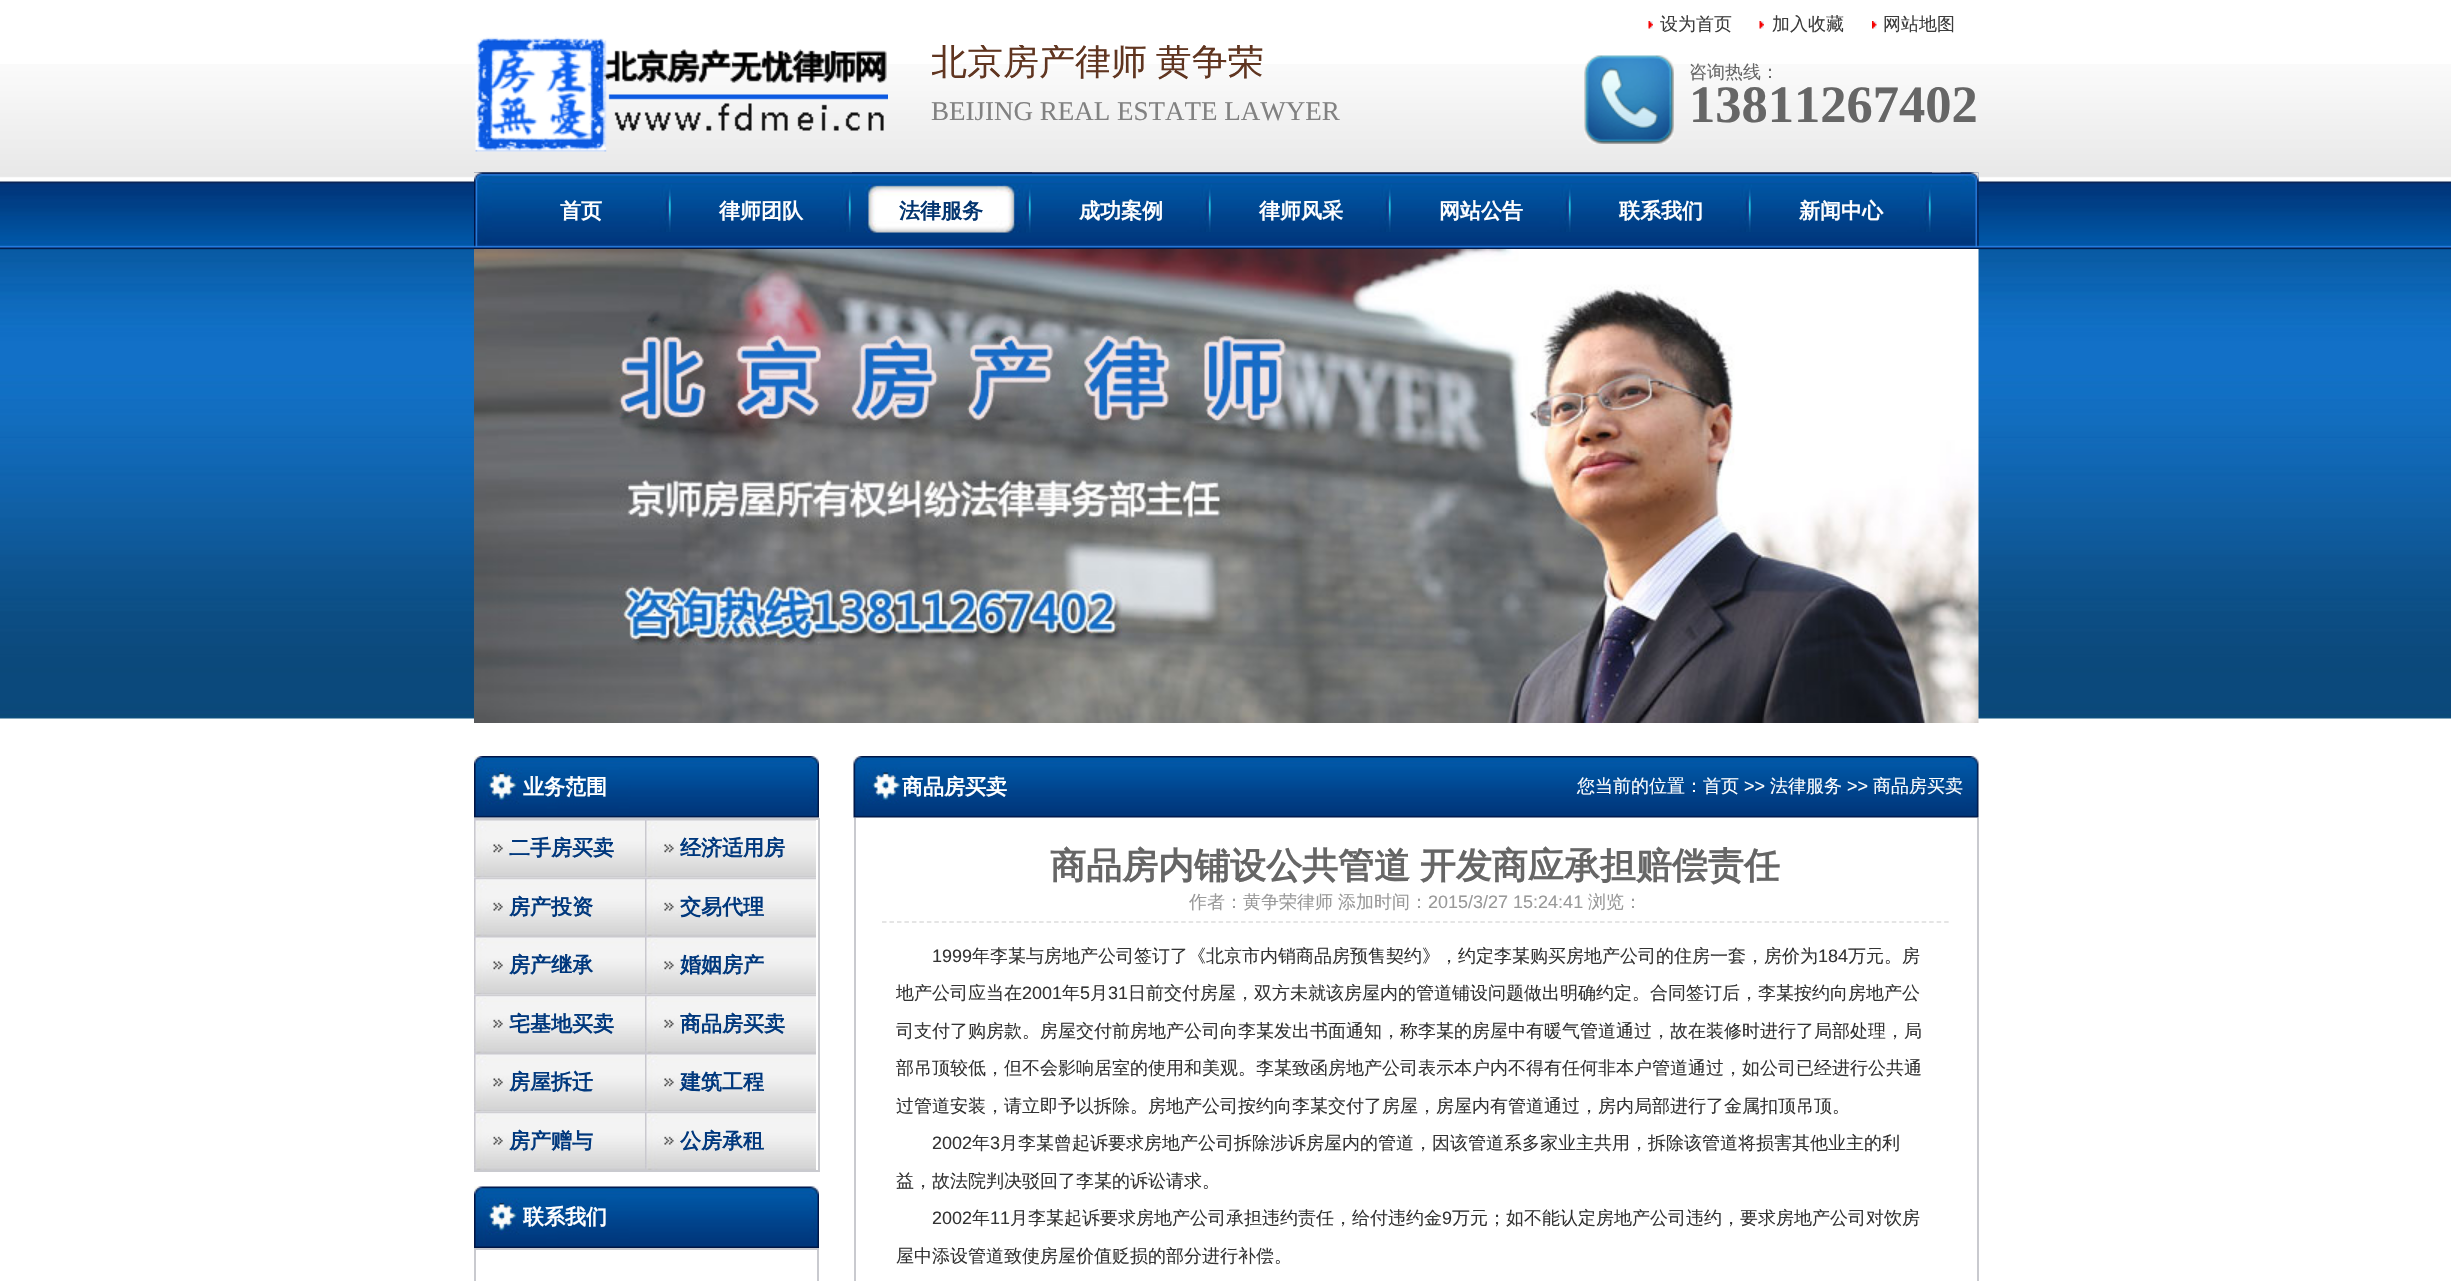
void draw(SkCanvas* canvas) {
	SkPaint paint;
	paint.setAntiAlias(true);
	auto spacedText = [&](const char* s, float x, float y, const SkFont& font, const SkPaint& ink, float letter, float word) {
		std::vector<SkGlyphID> glyphs(font.countText(s, strlen(s), SkTextEncoding::kUTF8));
		std::vector<float> xs(glyphs.size());
		font.textToGlyphs(s, strlen(s), SkTextEncoding::kUTF8, glyphs);
		font.getXPos(glyphs, xs, x);
		float extra = 0;
		for (size_t i = 0; i < glyphs.size(); i++) {
			xs[i] += extra;
			extra += letter + word * (glyphs[i] == font.unicharToGlyph(' '));
		}
		canvas->drawTextBlob(SkTextBlob::MakeFromPosHGlyphs(glyphs, xs, y, font), 0, 0, ink);
	};
	auto svgPath = [&](const char* data, bool evenOdd = false) {
		SkPath result = *SkParsePath::FromSVGString(data);
		if (evenOdd) result.setFillType(SkPathFillType::kEvenOdd);
		return result;
	};
	canvas->clear(0xffffffff);
	canvas->drawImageRect(SkImages::DeferredFromEncodedData(SkData::MakeFromFileName("img1.png")), SkRect::MakeXYWH(0, 64, 2451, 655), SkSamplingOptions());
	canvas->drawImageRect(SkImages::DeferredFromEncodedData(SkData::MakeFromFileName("img2.png")), SkRect::MakeXYWH(475, 36, 413, 116), SkSamplingOptions());
	canvas->save();
	canvas->clipRect(SkRect::MakeXYWH(932, 45, 408, 50));
	SkFont f1(fontMgr->matchFamilyStyle("WenQuanYi Zen Hei", SkFontStyle(500, SkFontStyle::kNormal_Width, SkFontStyle::kUpright_Slant)), 36);
	f1.setSubpixel(true);
	paint.setColor(0xff603520);
	spacedText("北京房产律师 黄争荣", 931, 74, f1, paint, 0, -2);
	canvas->restore();
	SkFont f2(fontMgr->matchFamilyStyle("Liberation Serif", SkFontStyle::Normal()), 27);
	f2.setSubpixel(true);
	paint.setColor(0xff818181);
	canvas->drawString("BEIJING REAL ESTATE LAWYER", 931, 120, f2, paint);
	canvas->drawImageRect(SkImages::DeferredFromEncodedData(SkData::MakeFromFileName("img3.png")), SkRect::MakeXYWH(1648, 21, 5, 8), SkSamplingOptions());
	SkFont f3(fontMgr->matchFamilyStyle("WenQuanYi Zen Hei", SkFontStyle(500, SkFontStyle::kNormal_Width, SkFontStyle::kUpright_Slant)), 18);
	f3.setSubpixel(true);
	paint.setColor(0xff3c3c3c);
	canvas->drawString("设为首页", 1660, 30, f3, paint);
	canvas->drawImageRect(SkImages::DeferredFromEncodedData(SkData::MakeFromFileName("img3.png")), SkRect::MakeXYWH(1759, 21, 5, 8), SkSamplingOptions());
	canvas->drawString("加入收藏", 1772, 30, f3, paint);
	canvas->drawImageRect(SkImages::DeferredFromEncodedData(SkData::MakeFromFileName("img4.png")), SkRect::MakeXYWH(1872, 21, 5, 8), SkSamplingOptions());
	canvas->drawString("网站地图", 1883, 30, f3, paint);
	canvas->drawImageRect(SkImages::DeferredFromEncodedData(SkData::MakeFromFileName("img5.png")), SkRect::MakeXYWH(1584, 55, 90, 89), SkSamplingOptions());
	paint.setColor(0xff666666);
	canvas->drawString("咨询热线：", 1689, 78, f3, paint);
	SkFont f4(fontMgr->matchFamilyStyle("Liberation Serif", SkFontStyle::Bold()), 52.5);
	f4.setSubpixel(true);
	canvas->drawString("13811267402", 1689, 122, f4, paint);
	canvas->drawImageRect(SkImages::DeferredFromEncodedData(SkData::MakeFromFileName("img6.png")), SkRect::MakeXYWH(474, 172, 1505, 77), SkSamplingOptions());
	canvas->drawImageRect(SkImages::DeferredFromEncodedData(SkData::MakeFromFileName("img7.png")), SkRect::MakeXYWH(474, 172, 18, 77), SkSamplingOptions());
	canvas->drawImageRect(SkImages::DeferredFromEncodedData(SkData::MakeFromFileName("img8.png")), SkRect::MakeXYWH(492, 172, 180, 60), SkSamplingOptions());
	SkFont f5(fontMgr->matchFamilyStyle("WenQuanYi Zen Hei", SkFontStyle::Bold()), 21);
	f5.setSubpixel(true);
	paint.setColor(0xffffffff);
	canvas->drawString("首页", 560, 218, f5, paint);
	canvas->drawImageRect(SkImages::DeferredFromEncodedData(SkData::MakeFromFileName("img9.png")), SkRect::MakeXYWH(672, 172, 180, 60), SkSamplingOptions());
	canvas->drawString("律师团队", 719, 218, f5, paint);
	canvas->drawImageRect(SkImages::DeferredFromEncodedData(SkData::MakeFromFileName("img10.png")), SkRect::MakeXYWH(852, 172, 180, 1), SkSamplingOptions());
	canvas->drawImageRect(SkImages::DeferredFromEncodedData(SkData::MakeFromFileName("img11.png")), SkRect::MakeXYWH(852, 172, 180, 61), SkSamplingOptions());
	paint.setColor(0xff02346f);
	canvas->drawString("法律服务", 899, 218, f5, paint);
	canvas->drawImageRect(SkImages::DeferredFromEncodedData(SkData::MakeFromFileName("img9.png")), SkRect::MakeXYWH(1032, 172, 180, 60), SkSamplingOptions());
	paint.setColor(0xffffffff);
	canvas->drawString("成功案例", 1079, 218, f5, paint);
	canvas->drawImageRect(SkImages::DeferredFromEncodedData(SkData::MakeFromFileName("img9.png")), SkRect::MakeXYWH(1212, 172, 180, 60), SkSamplingOptions());
	canvas->drawString("律师风采", 1259, 218, f5, paint);
	canvas->drawImageRect(SkImages::DeferredFromEncodedData(SkData::MakeFromFileName("img9.png")), SkRect::MakeXYWH(1392, 172, 180, 60), SkSamplingOptions());
	canvas->drawString("网站公告", 1439, 218, f5, paint);
	canvas->drawImageRect(SkImages::DeferredFromEncodedData(SkData::MakeFromFileName("img9.png")), SkRect::MakeXYWH(1572, 172, 180, 60), SkSamplingOptions());
	canvas->drawString("联系我们", 1619, 218, f5, paint);
	canvas->drawImageRect(SkImages::DeferredFromEncodedData(SkData::MakeFromFileName("img9.png")), SkRect::MakeXYWH(1752, 172, 180, 60), SkSamplingOptions());
	canvas->drawString("新闻中心", 1799, 218, f5, paint);
	canvas->drawImageRect(SkImages::DeferredFromEncodedData(SkData::MakeFromFileName("img12.png")), SkRect::MakeXYWH(1960, 172, 19, 75), SkSamplingOptions());
	canvas->drawImageRect(SkImages::DeferredFromEncodedData(SkData::MakeFromFileName("img13.png")), SkRect::MakeXYWH(474, 249, 1505, 474), SkSamplingOptions());
	canvas->drawImageRect(SkImages::DeferredFromEncodedData(SkData::MakeFromFileName("img14.png")), SkRect::MakeXYWH(474, 756, 345, 62), SkSamplingOptions());
	canvas->drawString("业务范围", 523, 794, f5, paint);
	paint.setColor(0xffc9cacf);
	canvas->drawRect(SkRect::MakeXYWH(474, 818, 345, 2), paint);
	canvas->drawRect(SkRect::MakeXYWH(818, 818, 2, 354), paint);
	canvas->drawRect(SkRect::MakeXYWH(474, 1170, 345, 2), paint);
	canvas->drawImageRect(SkImages::DeferredFromEncodedData(SkData::MakeFromFileName("img15.png")), SkRect::MakeXYWH(474, 819, 171, 59), SkSamplingOptions());
	paint.setColor(0xff00387d);
	canvas->drawString("二手房买卖", 509, 855, f5, paint);
	canvas->drawImageRect(SkImages::DeferredFromEncodedData(SkData::MakeFromFileName("img16.png")), SkRect::MakeXYWH(645, 819, 171, 59), SkSamplingOptions());
	canvas->drawString("经济适用房", 680, 855, f5, paint);
	canvas->drawImageRect(SkImages::DeferredFromEncodedData(SkData::MakeFromFileName("img17.png")), SkRect::MakeXYWH(474, 877, 171, 59), SkSamplingOptions());
	canvas->drawString("房产投资", 509, 914, f5, paint);
	canvas->drawImageRect(SkImages::DeferredFromEncodedData(SkData::MakeFromFileName("img18.png")), SkRect::MakeXYWH(645, 877, 171, 59), SkSamplingOptions());
	canvas->drawString("交易代理", 680, 914, f5, paint);
	canvas->drawImageRect(SkImages::DeferredFromEncodedData(SkData::MakeFromFileName("img15.png")), SkRect::MakeXYWH(474, 936, 171, 59), SkSamplingOptions());
	canvas->drawString("房产继承", 509, 972, f5, paint);
	canvas->drawImageRect(SkImages::DeferredFromEncodedData(SkData::MakeFromFileName("img16.png")), SkRect::MakeXYWH(645, 936, 171, 59), SkSamplingOptions());
	canvas->drawString("婚姻房产", 680, 972, f5, paint);
	canvas->drawImageRect(SkImages::DeferredFromEncodedData(SkData::MakeFromFileName("img17.png")), SkRect::MakeXYWH(474, 994, 171, 59), SkSamplingOptions());
	canvas->drawString("宅基地买卖", 509, 1031, f5, paint);
	canvas->drawImageRect(SkImages::DeferredFromEncodedData(SkData::MakeFromFileName("img18.png")), SkRect::MakeXYWH(645, 994, 171, 59), SkSamplingOptions());
	canvas->drawString("商品房买卖", 680, 1031, f5, paint);
	canvas->drawImageRect(SkImages::DeferredFromEncodedData(SkData::MakeFromFileName("img15.png")), SkRect::MakeXYWH(474, 1053, 171, 59), SkSamplingOptions());
	canvas->drawString("房屋拆迁", 509, 1089, f5, paint);
	canvas->drawImageRect(SkImages::DeferredFromEncodedData(SkData::MakeFromFileName("img16.png")), SkRect::MakeXYWH(645, 1053, 171, 59), SkSamplingOptions());
	canvas->drawString("建筑工程", 680, 1089, f5, paint);
	canvas->drawImageRect(SkImages::DeferredFromEncodedData(SkData::MakeFromFileName("img17.png")), SkRect::MakeXYWH(474, 1111, 171, 59), SkSamplingOptions());
	canvas->drawString("房产赠与", 509, 1148, f5, paint);
	canvas->drawImageRect(SkImages::DeferredFromEncodedData(SkData::MakeFromFileName("img18.png")), SkRect::MakeXYWH(645, 1111, 171, 59), SkSamplingOptions());
	canvas->drawString("公房承租", 680, 1148, f5, paint);
	canvas->drawImageRect(SkImages::DeferredFromEncodedData(SkData::MakeFromFileName("img19.png")), SkRect::MakeXYWH(474, 1186, 345, 62), SkSamplingOptions());
	paint.setColor(0xffffffff);
	canvas->drawString("联系我们", 523, 1224, f5, paint);
	paint.setStroke(true);
	paint.setStrokeWidth(2);
	paint.setColor(0xffc9cacf);
	canvas->drawRect(SkRect::MakeXYWH(475, 1249, 343, 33), paint);
	canvas->drawImageRect(SkImages::DeferredFromEncodedData(SkData::MakeFromFileName("img20.png")), SkRect::MakeXYWH(853, 756, 1126, 62), SkSamplingOptions());
	paint.setStroke(false);
	paint.setColor(0xffffffff);
	canvas->drawString("商品房买卖", 902, 794, f5, paint);
	canvas->drawString("您当前的位置：首页", 1577, 792, f3, paint);
	SkFont f6(fontMgr->matchFamilyStyle("Liberation Sans", SkFontStyle::Normal()), 18);
	f6.setSubpixel(true);
	canvas->drawString(">>", 1744, 792, f6, paint);
	canvas->drawString("法律服务", 1770, 792, f3, paint);
	canvas->drawString(">>", 1847, 792, f6, paint);
	canvas->drawString("商品房买卖", 1873, 792, f3, paint);
	paint.setColor(0xffc9cacf);
	canvas->drawRect(SkRect::MakeXYWH(1977, 818, 2, 463), paint);
	canvas->drawRect(SkRect::MakeXYWH(854, 818, 2, 463), paint);
	SkFont f7(fontMgr->matchFamilyStyle("WenQuanYi Zen Hei", SkFontStyle::Bold()), 36);
	f7.setSubpixel(true);
	paint.setColor(0xff666666);
	spacedText("商品房内铺设公共管道 开发商应承担赔偿责任", 1050, 878, f7, paint, 0, -1);
	paint.setColor(0xff999999);
	canvas->drawString("作者：黄争荣律师", 1189, 908, f3, paint);
	canvas->drawString("添加时间：", 1338, 908, f3, paint);
	canvas->drawString("2015/3/27 15:24:41", 1428, 908, f6, paint);
	canvas->drawString("浏览：", 1588, 908, f3, paint);
	paint.setStroke(true);
	paint.setStrokeWidth(1.5);
	paint.setColor(0xffdddddd);
	paint.setPathEffect(SkDashPathEffect::Make({{4.5f, 2.98f}}, 0));
	canvas->drawPath(svgPath("M882 922H1950"), paint);
	paint.setPathEffect(nullptr);
	paint.setStroke(false);
	paint.setColor(0xff333333);
	canvas->drawString("1999", 932, 962, f6, paint);
	canvas->drawString("年李某与房地产公司签订了《北京市内销商品房预售契约》，约定李某购买房地产公司的住房一套，房价为", 972, 962, f3, paint);
	canvas->drawString("184", 1818, 962, f6, paint);
	canvas->drawString("万元。房", 1848, 962, f3, paint);
	canvas->drawString("地产公司应当在", 896, 999, f3, paint);
	canvas->drawString("2001", 1022, 999, f6, paint);
	canvas->drawString("年", 1062, 999, f3, paint);
	canvas->drawString("5", 1080, 999, f6, paint);
	canvas->drawString("月", 1090, 999, f3, paint);
	canvas->drawString("31", 1108, 999, f6, paint);
	canvas->drawString("日前交付房屋，双方未就该房屋内的管道铺设问题做出明确约定。合同签订后，李某按约向房地产公", 1128, 999, f3, paint);
	canvas->drawString("司支付了购房款。房屋交付前房地产公司向李某发出书面通知，称李某的房屋中有暖气管道通过，故在装修时进行了局部处理，局", 896, 1037, f3, paint);
	canvas->drawString("部吊顶较低，但不会影响居室的使用和美观。李某致函房地产公司表示本户内不得有任何非本户管道通过，如公司已经进行公共通", 896, 1074, f3, paint);
	canvas->drawString("过管道安装，请立即予以拆除。房地产公司按约向李某交付了房屋，房屋内有管道通过，房内局部进行了金属扣顶吊顶。", 896, 1112, f3, paint);
	canvas->drawString("2002", 932, 1149, f6, paint);
	canvas->drawString("年", 972, 1149, f3, paint);
	canvas->drawString("3", 990, 1149, f6, paint);
	canvas->drawString("月李某曾起诉要求房地产公司拆除涉诉房屋内的管道，因该管道系多家业主共用，拆除该管道将损害其他业主的利", 1000, 1149, f3, paint);
	canvas->drawString("益，故法院判决驳回了李某的诉讼请求。", 896, 1187, f3, paint);
	canvas->drawString("2002", 932, 1224, f6, paint);
	canvas->drawString("年", 972, 1224, f3, paint);
	canvas->drawString("11", 990, 1224, f6, paint);
	canvas->drawString("月李某起诉要求房地产公司承担违约责任，给付违约金", 1010, 1224, f3, paint);
	canvas->drawString("9", 1442, 1224, f6, paint);
	canvas->drawString("万元；如不能认定房地产公司违约，要求房地产公司对饮房", 1452, 1224, f3, paint);
	canvas->drawString("屋中添设管道致使房屋价值贬损的部分进行补偿。", 896, 1262, f3, paint);
}
